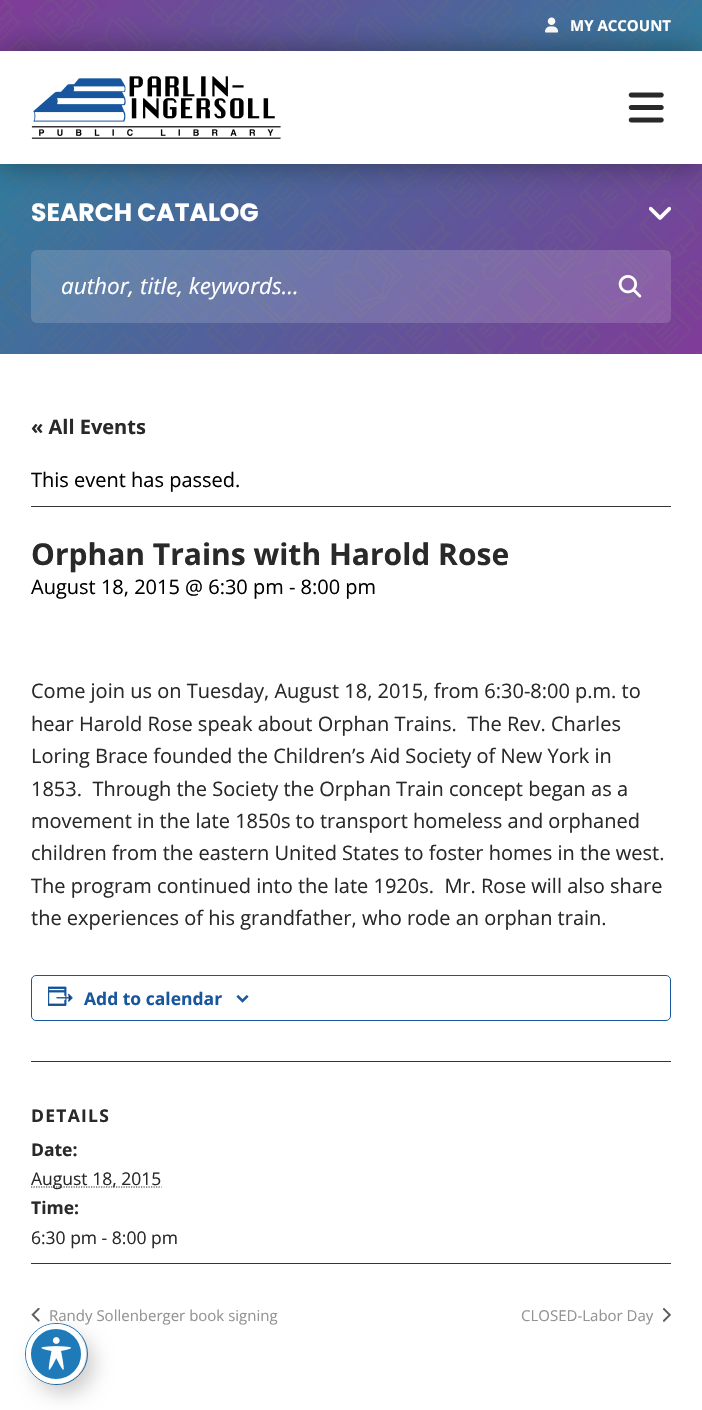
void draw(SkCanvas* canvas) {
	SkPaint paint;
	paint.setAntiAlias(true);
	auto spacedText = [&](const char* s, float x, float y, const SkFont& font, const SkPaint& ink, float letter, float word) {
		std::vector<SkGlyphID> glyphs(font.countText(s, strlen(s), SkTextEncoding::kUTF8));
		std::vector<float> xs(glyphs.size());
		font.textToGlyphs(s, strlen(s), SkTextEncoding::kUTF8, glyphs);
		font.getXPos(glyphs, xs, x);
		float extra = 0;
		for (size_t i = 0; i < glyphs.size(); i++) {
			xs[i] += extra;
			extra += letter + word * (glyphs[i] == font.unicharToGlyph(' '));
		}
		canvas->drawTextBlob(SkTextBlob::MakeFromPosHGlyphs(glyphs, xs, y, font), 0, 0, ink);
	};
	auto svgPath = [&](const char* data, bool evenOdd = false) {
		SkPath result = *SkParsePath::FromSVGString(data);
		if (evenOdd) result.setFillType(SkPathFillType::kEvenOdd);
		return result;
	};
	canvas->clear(0xffffffff);
	{
		const SkColor colors[] = {0xff317b9d, 0xff803b98};
		const float stops[] = {0, 1};
		const SkPoint ends[] = {{552, 213}, {151, -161}};
		paint.setShader(SkGradientShader::MakeLinear(ends, colors, stops, 2, SkTileMode::kClamp));
		paint.setAlpha(255);
	}
	canvas->drawRect(SkRect::MakeXYWH(0, 0, 702, 51), paint);
	canvas->drawImageRect(SkImages::DeferredFromEncodedData(SkData::MakeFromFileName("img3.png")), SkRect::MakeXYWH(0, 0, 702, 51), SkSamplingOptions());
	canvas->drawImageRect(SkImages::DeferredFromEncodedData(SkData::MakeFromFileName("img4.png")), SkRect::MakeXYWH(545, 17, 14, 16), SkSamplingOptions());
	{
		const SkColor colors[] = {0xff317b9d, 0xff803b98};
		const float stops[] = {0, 1};
		const SkPoint ends[] = {{116, 39}, {587, 478}};
		paint.setShader(SkGradientShader::MakeLinear(ends, colors, stops, 2, SkTileMode::kClamp));
		paint.setAlpha(255);
	}
	canvas->drawRect(SkRect::MakeXYWH(0, 164, 702, 190), paint);
	canvas->drawImageRect(SkImages::DeferredFromEncodedData(SkData::MakeFromFileName("img5.png")), SkRect::MakeXYWH(0, 164, 702, 190), SkSamplingOptions());
	canvas->drawImageRect(SkImages::DeferredFromEncodedData(SkData::MakeFromFileName("img6.png")), SkRect::MakeXYWH(649, 206, 22, 14), SkSamplingOptions());
	paint.setShader(nullptr);
	paint.setColor(0x66000000);
	paint.setMaskFilter(SkMaskFilter::MakeBlur(kNormal_SkBlurStyle, 15));
	canvas->drawRect(SkRect::MakeXYWH(0, 51, 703, 113), paint);
	paint.setMaskFilter(nullptr);
	paint.setColor(0xffffffff);
	canvas->drawRect(SkRect::MakeXYWH(0, 51, 702, 113), paint);
	canvas->drawImageRect(SkImages::DeferredFromEncodedData(SkData::MakeFromFileName("img1.png")), SkRect::MakeXYWH(31, 76, 250, 63), SkSamplingOptions());
	canvas->drawImageRect(SkImages::DeferredFromEncodedData(SkData::MakeFromFileName("img2.png")), SkRect::MakeXYWH(628, 92, 36, 31), SkSamplingOptions());
	SkFont f1(fontMgr->matchFamilyStyle("Open Sans", SkFontStyle::Bold()), 15);
	f1.setSubpixel(true);
	canvas->drawString("MY ACCOUNT", 570, 31, f1, paint);
	SkFont f2(fontMgr->matchFamilyStyle("Poppins", SkFontStyle::Bold()), 25);
	f2.setSubpixel(true);
	canvas->drawString("SEARCH CATALOG", 31, 221, f2, paint);
	paint.setColor(0x26ffffff);
	canvas->drawRoundRect(SkRect::MakeXYWH(31, 250, 640, 73), 6, 6, paint);
	SkFont f3(fontMgr->matchFamilyStyle("Open Sans", SkFontStyle::Italic()), 22.5);
	f3.setSubpixel(true);
	paint.setColor(0xffffffff);
	canvas->drawString("author, title, keywords…", 61, 294, f3, paint);
	canvas->drawImageRect(SkImages::DeferredFromEncodedData(SkData::MakeFromFileName("img7.png")), SkRect::MakeXYWH(618, 275, 24, 23), SkSamplingOptions());
	SkFont f4(fontMgr->matchFamilyStyle("Open Sans", SkFontStyle::Bold()), 20);
	f4.setSubpixel(true);
	paint.setColor(0xff292929);
	canvas->drawString("« All Events", 31, 434, f4, paint);
	paint.setColor(0xff363636);
	canvas->drawRect(SkRect::MakeXYWH(31, 506, 640, 1), paint);
	SkFont f5(fontMgr->matchFamilyStyle("Open Sans", SkFontStyle::Normal()), 20);
	f5.setSubpixel(true);
	paint.setColor(0xff000000);
	canvas->drawString("This event has passed.", 31, 487, f5, paint);
	SkFont f6(fontMgr->matchFamilyStyle("Open Sans", SkFontStyle::Bold()), 30);
	f6.setSubpixel(true);
	paint.setColor(0xff292929);
	canvas->drawString("Orphan Trains with Harold Rose", 31, 565, f6, paint);
	paint.setColor(0xff000000);
	canvas->drawString("August 18, 2015 @ 6:30 pm - 8:00 pm", 31, 594, f5, paint);
	paint.setColor(0xff292929);
	canvas->drawString("Come join us on Tuesday, August 18, 2015, from 6:30-8:00 p.m. to", 31, 698, f5, paint);
	canvas->drawString("hear Harold Rose speak about Orphan Trains.  The Rev. Charles", 31, 731, f5, paint);
	canvas->drawString("Loring Brace founded the Children’s Aid Society of New York in", 31, 763, f5, paint);
	canvas->drawString("1853.  Through the Society the Orphan Train concept began as a", 31, 796, f5, paint);
	canvas->drawString("movement in the late 1850s to transport homeless and orphaned", 31, 828, f5, paint);
	canvas->drawString("children from the eastern United States to foster homes in the west.", 31, 860, f5, paint);
	canvas->drawString("The program continued into the late 1920s.  Mr. Rose will also share", 31, 893, f5, paint);
	canvas->drawString("the experiences of his grandfather, who rode an orphan train.", 31, 925, f5, paint);
	paint.setStroke(true);
	paint.setStrokeWidth(1);
	paint.setColor(0xff18579e);
	canvas->drawRoundRect(SkRect::MakeXYWH(31.5, 975.5, 639, 45), 4.5, 4.5, paint);
	canvas->drawImageRect(SkImages::DeferredFromEncodedData(SkData::MakeFromFileName("img8.png")), SkRect::MakeXYWH(48, 986, 25, 20), SkSamplingOptions());
	SkFont f7(fontMgr->matchFamilyStyle("Open Sans", SkFontStyle::Bold()), 17.5);
	f7.setSubpixel(true);
	paint.setStroke(false);
	canvas->drawString("Add to calendar", 84, 1005, f7, paint);
	canvas->drawImageRect(SkImages::DeferredFromEncodedData(SkData::MakeFromFileName("img9.png")), SkRect::MakeXYWH(236, 995, 13, 8), SkSamplingOptions());
	paint.setColor(0xff363636);
	canvas->drawRect(SkRect::MakeXYWH(31, 1061, 640, 1), paint);
	paint.setColor(0xff292929);
	spacedText("DETAILS", 31, 1122, f7, paint, 1.25, 0);
	canvas->drawString("Date:", 31, 1156, f7, paint);
	paint.setStroke(true);
	paint.setStrokeWidth(1.2);
	paint.setPathEffect(SkDashPathEffect::Make({{1.25f, 1.25f}}, 0));
	canvas->drawPath(svgPath("M31 1187H161.5"), paint);
	paint.setPathEffect(nullptr);
	SkFont f8(fontMgr->matchFamilyStyle("Open Sans", SkFontStyle::Normal()), 17.5);
	f8.setSubpixel(true);
	paint.setStroke(false);
	canvas->drawString("August 18, 2015", 31, 1185, f8, paint);
	canvas->drawString("Time:", 31, 1214, f7, paint);
	canvas->drawString("6:30 pm - 8:00 pm", 31, 1244, f8, paint);
	paint.setColor(0xff363636);
	canvas->drawRect(SkRect::MakeXYWH(31, 1263, 640, 1), paint);
	canvas->drawImageRect(SkImages::DeferredFromEncodedData(SkData::MakeFromFileName("img10.png")), SkRect::MakeXYWH(31, 1308, 9, 14), SkSamplingOptions());
	SkFont f9(fontMgr->matchFamilyStyle("Open Sans", SkFontStyle::Normal()), 15);
	f9.setSubpixel(true);
	paint.setColor(0xff949494);
	canvas->drawString("Randy Sollenberger book signing", 49, 1321, f9, paint);
	canvas->drawString("CLOSED-Labor Day", 521, 1321, f9, paint);
	canvas->drawImageRect(SkImages::DeferredFromEncodedData(SkData::MakeFromFileName("img11.png")), SkRect::MakeXYWH(663, 1308, 8, 14), SkSamplingOptions());
	paint.setStroke(true);
	paint.setStrokeWidth(1);
	paint.setColor(0xff1e7ab9);
	canvas->drawRoundRect(SkRect::MakeXYWH(25.5, 1323.5, 62, 61), 30.5, 30.5, paint);
	paint.setStroke(false);
	paint.setColor(0x33000000);
	paint.setMaskFilter(SkMaskFilter::MakeBlur(kNormal_SkBlurStyle, 10));
	canvas->drawRoundRect(SkRect::MakeXYWH(34, 1334, 60, 60), 30, 30, paint);
	paint.setMaskFilter(nullptr);
	paint.setColor(0xff1e7ab9);
	canvas->drawCircle(56, 1354, 27.5, paint);
	paint.setStroke(true);
	paint.setStrokeWidth(5);
	paint.setColor(0xffffffff);
	canvas->drawCircle(56, 1354, 27.5, paint);
	canvas->drawImageRect(SkImages::DeferredFromEncodedData(SkData::MakeFromFileName("img12.png")), SkRect::MakeXYWH(41, 1337, 30, 33), SkSamplingOptions());
}
